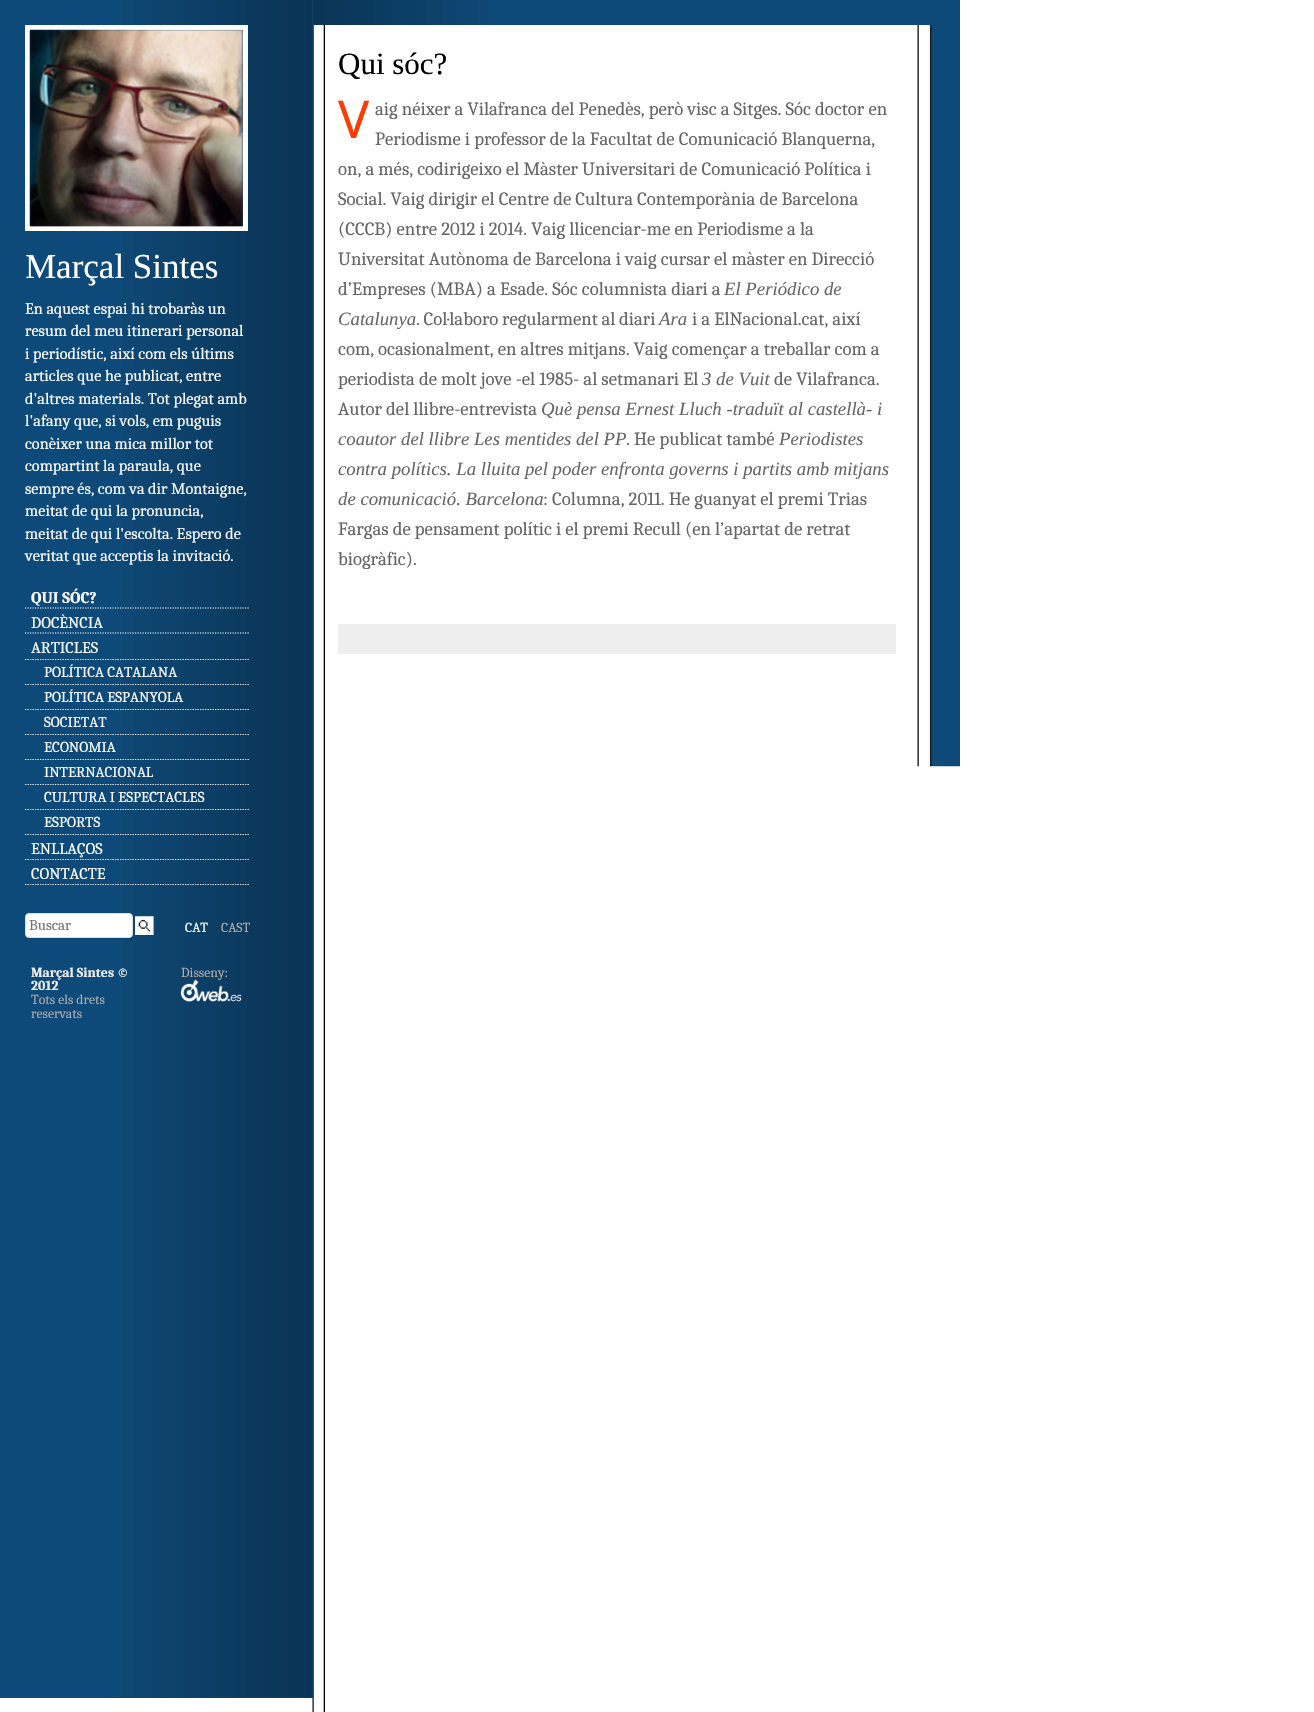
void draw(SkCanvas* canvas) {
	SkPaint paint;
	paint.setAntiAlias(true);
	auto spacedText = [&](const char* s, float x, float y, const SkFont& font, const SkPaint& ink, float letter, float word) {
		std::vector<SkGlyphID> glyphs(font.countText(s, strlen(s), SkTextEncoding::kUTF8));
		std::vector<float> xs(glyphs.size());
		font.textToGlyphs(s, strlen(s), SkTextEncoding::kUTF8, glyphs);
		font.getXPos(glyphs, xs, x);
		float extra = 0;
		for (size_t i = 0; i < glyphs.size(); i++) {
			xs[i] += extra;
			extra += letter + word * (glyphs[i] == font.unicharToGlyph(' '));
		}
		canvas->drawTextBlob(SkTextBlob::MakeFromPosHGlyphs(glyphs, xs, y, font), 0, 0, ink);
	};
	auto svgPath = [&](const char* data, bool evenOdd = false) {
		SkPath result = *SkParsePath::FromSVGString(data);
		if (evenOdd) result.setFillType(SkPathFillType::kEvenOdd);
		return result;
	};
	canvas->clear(0xffffffff);
	canvas->drawImageRect(SkImages::DeferredFromEncodedData(SkData::MakeFromFileName("img1.png")), SkRect::MakeXYWH(312, 25, 13, 1687), SkSamplingOptions());
	paint.setColor(0xff0e4a79);
	canvas->drawRect(SkRect::MakeXYWH(313, 0, 647, 25), paint);
	canvas->drawImageRect(SkImages::DeferredFromEncodedData(SkData::MakeFromFileName("img2.png")), SkRect::MakeXYWH(313, 0, 178, 25), SkSamplingOptions());
	canvas->drawRect(SkRect::MakeXYWH(0, 0, 313, 1698), paint);
	canvas->drawImageRect(SkImages::DeferredFromEncodedData(SkData::MakeFromFileName("img3.png")), SkRect::MakeXYWH(122, 0, 191, 1698), SkSamplingOptions());
	paint.setStroke(true);
	paint.setStrokeWidth(5);
	paint.setColor(0xffffffff);
	canvas->drawRect(SkRect::MakeXYWH(27.5, 27.5, 218, 201), paint);
	canvas->drawImageRect(SkImages::DeferredFromEncodedData(SkData::MakeFromFileName("img4.png")), SkRect::MakeXYWH(29, 29, 214, 198), SkSamplingOptions());
	SkFont f1(fontMgr->matchFamilyStyle("Liberation Serif", SkFontStyle::Normal()), 35);
	f1.setSubpixel(true);
	paint.setStroke(false);
	canvas->drawString("Marçal Sintes", 25, 278, f1, paint);
	SkFont f2(fontMgr->matchFamilyStyle("Caladea", SkFontStyle::Normal()), 16.25);
	f2.setSubpixel(true);
	canvas->drawString("En aquest espai hi trobaràs un", 25, 314, f2, paint);
	canvas->drawString("resum del meu itinerari personal", 25, 336, f2, paint);
	canvas->drawString("i periodístic, així com els últims", 25, 359, f2, paint);
	canvas->drawString("articles que he publicat, entre", 25, 381, f2, paint);
	canvas->drawString("d'altres materials. Tot plegat amb", 25, 404, f2, paint);
	canvas->drawString("l'afany que, si vols, em puguis", 25, 426, f2, paint);
	canvas->drawString("conèixer una mica millor tot", 25, 449, f2, paint);
	canvas->drawString("compartint la paraula, que", 25, 471, f2, paint);
	canvas->drawString("sempre és, com va dir Montaigne,", 25, 494, f2, paint);
	canvas->drawString("meitat de qui la pronuncia,", 25, 516, f2, paint);
	canvas->drawString("meitat de qui l'escolta. Espero de", 25, 539, f2, paint);
	canvas->drawString("veritat que acceptis la invitació.", 25, 561, f2, paint);
	paint.setStroke(true);
	paint.setStrokeWidth(1.2);
	paint.setPathEffect(SkDashPathEffect::Make({{1.25f, 1.25f}}, 0));
	canvas->drawPath(svgPath("M25 608H250"), paint);
	paint.setPathEffect(nullptr);
	SkFont f3(fontMgr->matchFamilyStyle("Caladea", SkFontStyle::Bold()), 16.25);
	f3.setSubpixel(true);
	paint.setStroke(false);
	canvas->drawString("QUI SÓC?", 31, 603, f3, paint);
	paint.setStroke(true);
	paint.setPathEffect(SkDashPathEffect::Make({{1.25f, 1.25f}}, 0));
	canvas->drawPath(svgPath("M25 633H250"), paint);
	paint.setPathEffect(nullptr);
	paint.setStroke(false);
	canvas->drawString("DOCÈNCIA", 31, 628, f2, paint);
	paint.setStroke(true);
	paint.setPathEffect(SkDashPathEffect::Make({{1.25f, 1.25f}}, 0));
	canvas->drawPath(svgPath("M25 659.5H250"), paint);
	paint.setPathEffect(nullptr);
	paint.setStroke(false);
	canvas->drawString("ARTICLES", 31, 653, f2, paint);
	paint.setStroke(true);
	paint.setPathEffect(SkDashPathEffect::Make({{1.25f, 1.25f}}, 0));
	canvas->drawPath(svgPath("M25 684.5H250"), paint);
	paint.setPathEffect(nullptr);
	SkFont f4(fontMgr->matchFamilyStyle("Caladea", SkFontStyle::Normal()), 15);
	f4.setSubpixel(true);
	paint.setStroke(false);
	canvas->drawString("POLÍTICA CATALANA", 44, 677, f4, paint);
	paint.setStroke(true);
	paint.setPathEffect(SkDashPathEffect::Make({{1.25f, 1.25f}}, 0));
	canvas->drawPath(svgPath("M25 709.5H250"), paint);
	paint.setPathEffect(nullptr);
	paint.setStroke(false);
	canvas->drawString("POLÍTICA ESPANYOLA", 44, 702, f4, paint);
	paint.setStroke(true);
	paint.setPathEffect(SkDashPathEffect::Make({{1.25f, 1.25f}}, 0));
	canvas->drawPath(svgPath("M25 734.5H250"), paint);
	paint.setPathEffect(nullptr);
	paint.setStroke(false);
	canvas->drawString("SOCIETAT", 44, 727, f4, paint);
	paint.setStroke(true);
	paint.setPathEffect(SkDashPathEffect::Make({{1.25f, 1.25f}}, 0));
	canvas->drawPath(svgPath("M25 759.5H250"), paint);
	paint.setPathEffect(nullptr);
	paint.setStroke(false);
	canvas->drawString("ECONOMIA", 44, 752, f4, paint);
	paint.setStroke(true);
	paint.setPathEffect(SkDashPathEffect::Make({{1.25f, 1.25f}}, 0));
	canvas->drawPath(svgPath("M25 784.5H250"), paint);
	paint.setPathEffect(nullptr);
	paint.setStroke(false);
	canvas->drawString("INTERNACIONAL", 44, 777, f4, paint);
	paint.setStroke(true);
	paint.setPathEffect(SkDashPathEffect::Make({{1.25f, 1.25f}}, 0));
	canvas->drawPath(svgPath("M25 809.5H250"), paint);
	paint.setPathEffect(nullptr);
	paint.setStroke(false);
	canvas->drawString("CULTURA I ESPECTACLES", 44, 802, f4, paint);
	paint.setStroke(true);
	paint.setPathEffect(SkDashPathEffect::Make({{1.25f, 1.25f}}, 0));
	canvas->drawPath(svgPath("M25 834.5H250"), paint);
	paint.setPathEffect(nullptr);
	paint.setStroke(false);
	canvas->drawString("ESPORTS", 44, 827, f4, paint);
	paint.setStroke(true);
	paint.setPathEffect(SkDashPathEffect::Make({{1.25f, 1.25f}}, 0));
	canvas->drawPath(svgPath("M25 859.5H250"), paint);
	paint.setPathEffect(nullptr);
	paint.setStroke(false);
	canvas->drawString("ENLLAÇOS", 31, 854, f2, paint);
	paint.setStroke(true);
	paint.setPathEffect(SkDashPathEffect::Make({{1.25f, 1.25f}}, 0));
	canvas->drawPath(svgPath("M25 884.5H250"), paint);
	paint.setPathEffect(nullptr);
	paint.setStroke(false);
	canvas->drawString("CONTACTE", 31, 879, f2, paint);
	canvas->drawRoundRect(SkRect::MakeXYWH(25.5, 913.5, 107, 24), 3.5, 3.5, paint);
	paint.setStroke(true);
	paint.setStrokeWidth(1);
	paint.setColor(0xffdddddd);
	canvas->drawRoundRect(SkRect::MakeXYWH(25.5, 913.5, 107, 24), 3.5, 3.5, paint);
	paint.setStroke(false);
	paint.setColor(0xff757575);
	canvas->drawString("Buscar", 29, 930, f4, paint);
	canvas->drawImageRect(SkImages::DeferredFromEncodedData(SkData::MakeFromFileName("img5.png")), SkRect::MakeXYWH(135, 916, 19, 19), SkSamplingOptions());
	SkFont f5(fontMgr->matchFamilyStyle("Caladea", SkFontStyle::Normal()), 13.75);
	f5.setSubpixel(true);
	paint.setColor(0xffffffff);
	canvas->drawString("CAT", 185, 932, f5, paint);
	paint.setColor(0xffaaaaaa);
	canvas->drawString("CAST", 221, 932, f5, paint);
	SkFont f6(fontMgr->matchFamilyStyle("Caladea", SkFontStyle::Bold()), 13.75);
	f6.setSubpixel(true);
	paint.setColor(0xffeeeeee);
	canvas->drawString("Marçal Sintes ©", 31, 977, f6, paint);
	canvas->drawString("2012", 31, 990, f6, paint);
	paint.setColor(0xffaaaaaa);
	canvas->drawString("Tots els drets", 31, 1004, f5, paint);
	canvas->drawString("reservats", 31, 1018, f5, paint);
	canvas->drawString("Disseny:", 181, 977, f5, paint);
	canvas->drawImageRect(SkImages::DeferredFromEncodedData(SkData::MakeFromFileName("img6.png")), SkRect::MakeXYWH(180, 979, 62, 23), SkSamplingOptions());
	canvas->drawImageRect(SkImages::DeferredFromEncodedData(SkData::MakeFromFileName("img7.png")), SkRect::MakeXYWH(917, 25, 43, 742), SkSamplingOptions());
	SkFont f7(fontMgr->matchFamilyStyle("Liberation Serif", SkFontStyle::Normal()), 31);
	f7.setSubpixel(true);
	paint.setColor(0xff000000);
	canvas->drawString("Qui sóc?", 338, 74, f7, paint);
	SkFont f8(fontMgr->matchFamilyStyle("Noto Sans", SkFontStyle::Normal()), 52);
	f8.setSubpixel(true);
	paint.setColor(0xfffc3c00);
	canvas->drawString("V", 338, 138, f8, paint);
	SkFont f9(fontMgr->matchFamilyStyle("Caladea", SkFontStyle::Normal()), 18.75);
	f9.setSubpixel(true);
	paint.setColor(0xff666666);
	canvas->drawString("aig néixer a Vilafranca del Penedès, però visc a Sitges. Sóc doctor en", 375, 115, f9, paint);
	canvas->drawString("Periodisme i professor de la Facultat de Comunicació Blanquerna,", 375, 145, f9, paint);
	canvas->drawString("on, a més, codirigeixo el Màster Universitari de Comunicació Política i", 338, 175, f9, paint);
	canvas->drawString("Social. Vaig dirigir el Centre de Cultura Contemporània de Barcelona", 338, 205, f9, paint);
	canvas->drawString("(CCCB) entre 2012 i 2014. Vaig llicenciar-me en Periodisme a la", 338, 235, f9, paint);
	canvas->drawString("Universitat Autònoma de Barcelona i vaig cursar el màster en Direcció", 338, 265, f9, paint);
	canvas->drawString("d’Empreses (MBA) a Esade. Sóc columnista diari a", 338, 295, f9, paint);
	SkFont f10(fontMgr->matchFamilyStyle("Liberation Serif", SkFontStyle::Italic()), 18.75);
	f10.setSubpixel(true);
	canvas->drawString("El Periódico de", 724, 295, f10, paint);
	canvas->drawString("Catalunya", 338, 325, f10, paint);
	spacedText(". Col·laboro regularment al diari", 416, 325, f9, paint, 0, -0.5);
	canvas->drawString("Ara", 659, 325, f10, paint);
	canvas->drawString("i a ElNacional.cat, així", 692, 325, f9, paint);
	canvas->drawString("com, ocasionalment, en altres mitjans. Vaig començar a treballar com a", 338, 355, f9, paint);
	canvas->drawString("periodista de molt jove -el 1985- al setmanari El", 338, 385, f9, paint);
	canvas->drawString("3 de Vuit", 702, 385, f10, paint);
	canvas->drawString("de Vilafranca.", 774, 385, f9, paint);
	canvas->drawString("Autor del llibre-entrevista", 338, 415, f9, paint);
	canvas->drawString("Què pensa Ernest Lluch -traduït al castellà- i", 541, 415, f10, paint);
	canvas->drawString("coautor del llibre Les mentides del PP", 338, 445, f10, paint);
	canvas->drawString(". He publicat també", 626, 445, f9, paint);
	canvas->drawString("Periodistes", 779, 445, f10, paint);
	canvas->drawString("contra polítics. La lluita pel poder enfronta governs i partits amb mitjans", 338, 475, f10, paint);
	canvas->drawString("de comunicació. Barcelona", 338, 505, f10, paint);
	canvas->drawString(": Columna, 2011. He guanyat el premi Trias", 543, 505, f9, paint);
	canvas->drawString("Fargas de pensament polític i el premi Recull (en l’apartat de retrat", 338, 535, f9, paint);
	canvas->drawString("biogràfic).", 338, 565, f9, paint);
	paint.setColor(0xffeeeeee);
	canvas->drawRect(SkRect::MakeXYWH(338, 624, 558, 30), paint);
}
